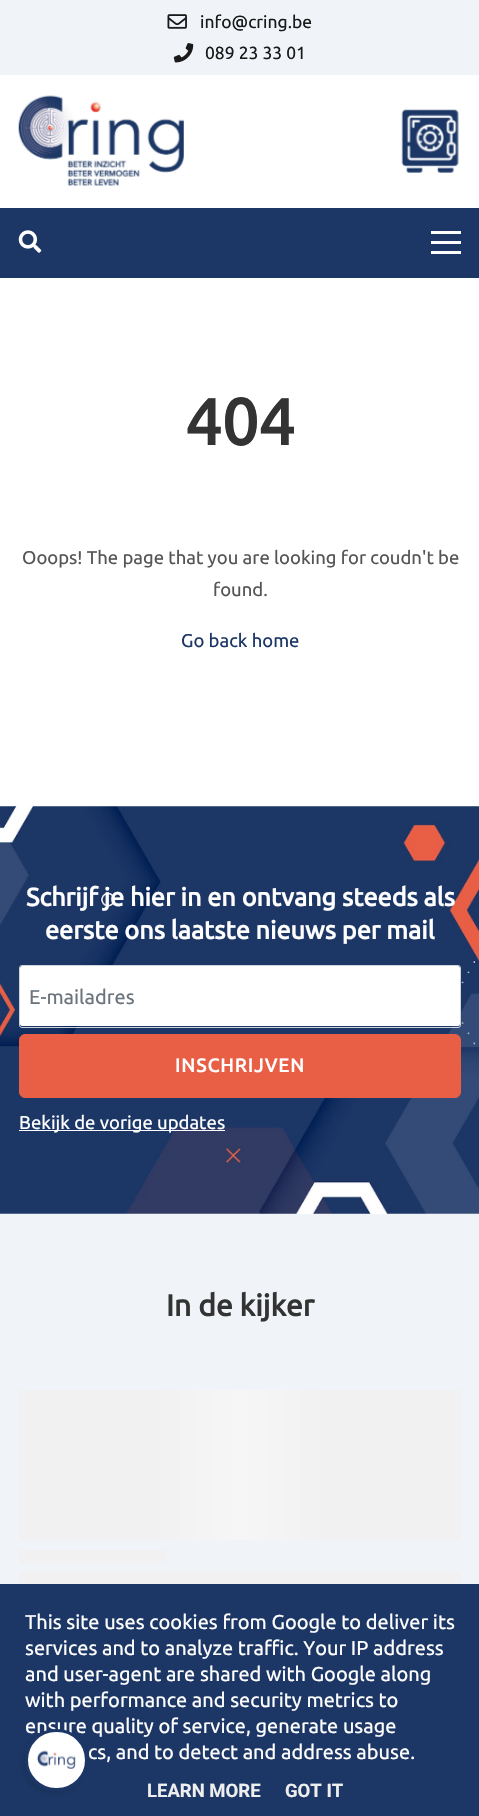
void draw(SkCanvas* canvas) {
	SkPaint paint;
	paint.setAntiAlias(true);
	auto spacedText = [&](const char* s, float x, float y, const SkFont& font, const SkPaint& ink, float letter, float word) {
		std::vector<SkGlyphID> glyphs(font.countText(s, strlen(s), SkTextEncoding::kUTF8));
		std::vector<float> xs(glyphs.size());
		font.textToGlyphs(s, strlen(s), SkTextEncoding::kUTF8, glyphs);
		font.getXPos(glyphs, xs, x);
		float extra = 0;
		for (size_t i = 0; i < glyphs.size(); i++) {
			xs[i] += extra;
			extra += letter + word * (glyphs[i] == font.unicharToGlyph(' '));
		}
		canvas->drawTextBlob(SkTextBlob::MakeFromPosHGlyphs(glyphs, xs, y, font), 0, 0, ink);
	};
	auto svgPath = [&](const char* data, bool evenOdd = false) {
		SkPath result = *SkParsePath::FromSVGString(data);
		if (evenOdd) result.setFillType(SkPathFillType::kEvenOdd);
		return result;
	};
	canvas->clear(0xffffffff);
	paint.setColor(0xfff0f4f9);
	canvas->drawRect(SkRect::MakeXYWH(0, 0, 479, 75), paint);
	canvas->drawImageRect(SkImages::DeferredFromEncodedData(SkData::MakeFromFileName("img1.png")), SkRect::MakeXYWH(167, 14, 20, 15), SkSamplingOptions());
	SkFont f1(fontMgr->matchFamilyStyle("Ubuntu", SkFontStyle::Normal()), 17.5);
	f1.setSubpixel(true);
	paint.setColor(0xff1a1a1a);
	canvas->drawString("info@cring.be", 200, 28, f1, paint);
	canvas->drawImageRect(SkImages::DeferredFromEncodedData(SkData::MakeFromFileName("img2.png")), SkRect::MakeXYWH(173, 43, 21, 20), SkSamplingOptions());
	canvas->drawString("089 23 33 01", 205, 59, f1, paint);
	canvas->drawImageRect(SkImages::DeferredFromEncodedData(SkData::MakeFromFileName("img3.png")), SkRect::MakeXYWH(18, 95, 166, 91), SkSamplingOptions());
	canvas->drawImageRect(SkImages::DeferredFromEncodedData(SkData::MakeFromFileName("img4.png")), SkRect::MakeXYWH(401, 109, 58, 64), SkSamplingOptions());
	paint.setColor(0xff1c3766);
	canvas->drawRect(SkRect::MakeXYWH(0, 208, 479, 70), paint);
	canvas->drawImageRect(SkImages::DeferredFromEncodedData(SkData::MakeFromFileName("img5.png")), SkRect::MakeXYWH(18, 230, 24, 23), SkSamplingOptions());
	paint.setColor(0xffffffff);
	canvas->drawRect(SkRect::MakeXYWH(431, 231, 30, 3), paint);
	canvas->drawRect(SkRect::MakeXYWH(431, 241, 30, 3), paint);
	canvas->drawRect(SkRect::MakeXYWH(431, 251, 30, 3), paint);
	SkFont f2(fontMgr->matchFamilyStyle("Ubuntu", SkFontStyle::Bold()), 65);
	f2.setSubpixel(true);
	paint.setColor(0xff333333);
	canvas->drawString("404", 185, 445, f2, paint);
	SkFont f3(fontMgr->matchFamilyStyle("Ubuntu", SkFontStyle::Normal()), 18.5);
	f3.setSubpixel(true);
	paint.setColor(0xff555555);
	canvas->drawString("Ooops! The page that you are looking for coudn't be", 22, 564, f3, paint);
	canvas->drawString("found.", 213, 596, f3, paint);
	paint.setColor(0xff1c3766);
	canvas->drawString("Go back home", 181, 647, f3, paint);
	canvas->drawImageRect(SkImages::DeferredFromEncodedData(SkData::MakeFromFileName("img6.png")), SkRect::MakeXYWH(0, 806, 479, 408), SkSamplingOptions());
	SkFont f4(fontMgr->matchFamilyStyle("Ubuntu", SkFontStyle::Bold()), 25.25);
	f4.setSubpixel(true);
	paint.setColor(0xffffffff);
	canvas->drawString("Schrijf je hier in en ontvang steeds als", 26, 906, f4, paint);
	canvas->drawString("eerste ons laatste nieuws per mail", 45, 939, f4, paint);
	canvas->drawRoundRect(SkRect::MakeXYWH(20, 966, 440, 60), 2, 2, paint);
	paint.setStroke(true);
	paint.setStrokeWidth(1);
	paint.setColor(0xffced4da);
	canvas->drawRoundRect(SkRect::MakeXYWH(19.5, 965.5, 441, 62), 2.5, 2.5, paint);
	SkFont f5(fontMgr->matchFamilyStyle("Ubuntu", SkFontStyle::Normal()), 20);
	f5.setSubpixel(true);
	paint.setStroke(false);
	paint.setColor(0xff6c757d);
	canvas->drawString("E-mailadres", 29, 1004, f5, paint);
	paint.setColor(0xffe95f45);
	canvas->drawRoundRect(SkRect::MakeXYWH(19.5, 1034.5, 441, 63), 5.5, 5.5, paint);
	paint.setStroke(true);
	canvas->drawRoundRect(SkRect::MakeXYWH(19.5, 1034.5, 441, 63), 5.5, 5.5, paint);
	SkFont f6(fontMgr->matchFamilyStyle("Ubuntu", SkFontStyle::Bold()), 18.75);
	f6.setSubpixel(true);
	paint.setStroke(false);
	paint.setColor(0xffffffff);
	spacedText("INSCHRIJVEN", 175, 1072, f6, paint, 1.25, 0);
	canvas->drawRect(SkRect::MakeXYWH(19, 1130, 206, 1), paint);
	canvas->drawString("Bekijk de vorige updates", 19, 1129, f3, paint);
	paint.setColor(0xfff0f4f9);
	canvas->drawRect(SkRect::MakeXYWH(0, 1214, 479, 370), paint);
	SkFont f7(fontMgr->matchFamilyStyle("Ubuntu", SkFontStyle::Bold()), 30);
	f7.setSubpixel(true);
	paint.setColor(0xff333333);
	canvas->drawString("In de kijker", 166, 1316, f7, paint);
	{
		const SkColor colors[] = {0xfff1f1f1, 0xfff6f6f6, 0xfff1f1f1};
		const float stops[] = {0.46, 0.5, 0.54};
		const SkPoint ends[] = {{-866, 1465}, {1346, 1465}};
		paint.setShader(SkGradientShader::MakeLinear(ends, colors, stops, 3, SkTileMode::kClamp));
		paint.setAlpha(255);
	}
	canvas->drawPath(svgPath("M21.5 1390H458.5C460 1390 461 1391 461 1392.5V1540H19V1392.5C19 1391 20 1390 21.5 1390Z"), paint);
	paint.setShader(nullptr);
	paint.setColor(0xfff1f1f1);
	canvas->drawRect(SkRect::MakeXYWH(19, 1550, 147, 13), paint);
	canvas->drawRect(SkRect::MakeXYWH(19, 1571, 442, 13), paint);
	paint.setColor(0xff1c3766);
	canvas->drawRect(SkRect::MakeXYWH(0, 1584, 479, 232), paint);
	paint.setColor(0xffffffff);
	canvas->drawString("This site uses cookies from Google to deliver its", 25, 1629, f5, paint);
	canvas->drawString("services and to analyze traffic. Your IP address", 25, 1655, f5, paint);
	canvas->drawString("and user-agent are shared with Google along", 25, 1681, f5, paint);
	canvas->drawString("with performance and security metrics to", 25, 1707, f5, paint);
	canvas->drawString("ensure quality of service, generate usage", 25, 1733, f5, paint);
	canvas->drawString("cs, and to detect and address abuse.", 88, 1759, f5, paint);
	SkFont f8(fontMgr->matchFamilyStyle("Roboto", SkFontStyle::Bold()), 18.5);
	f8.setSubpixel(true);
	paint.setColor(0xffeeeeee);
	canvas->drawString("LEARN MORE", 147, 1797, f8, paint);
	canvas->drawString("GOT IT", 285, 1797, f8, paint);
	paint.setColor(0x1a000000);
	paint.setMaskFilter(SkMaskFilter::MakeBlur(kNormal_SkBlurStyle, 3));
	canvas->drawRoundRect(SkRect::MakeXYWH(23, 1731, 62, 63), 31, 31, paint);
	paint.setMaskFilter(nullptr);
	paint.setColor(0xffffffff);
	canvas->drawRoundRect(SkRect::MakeXYWH(26.5, 1730.5, 60, 59), 29.5, 29.5, paint);
	paint.setStroke(true);
	paint.setStrokeWidth(3);
	paint.setColor(0xff1c3766);
	canvas->drawRoundRect(SkRect::MakeXYWH(26.5, 1730.5, 60, 59), 29.5, 29.5, paint);
	canvas->drawImageRect(SkImages::DeferredFromEncodedData(SkData::MakeFromFileName("img7.png")), SkRect::MakeXYWH(37, 1750, 39, 19), SkSamplingOptions());
}
